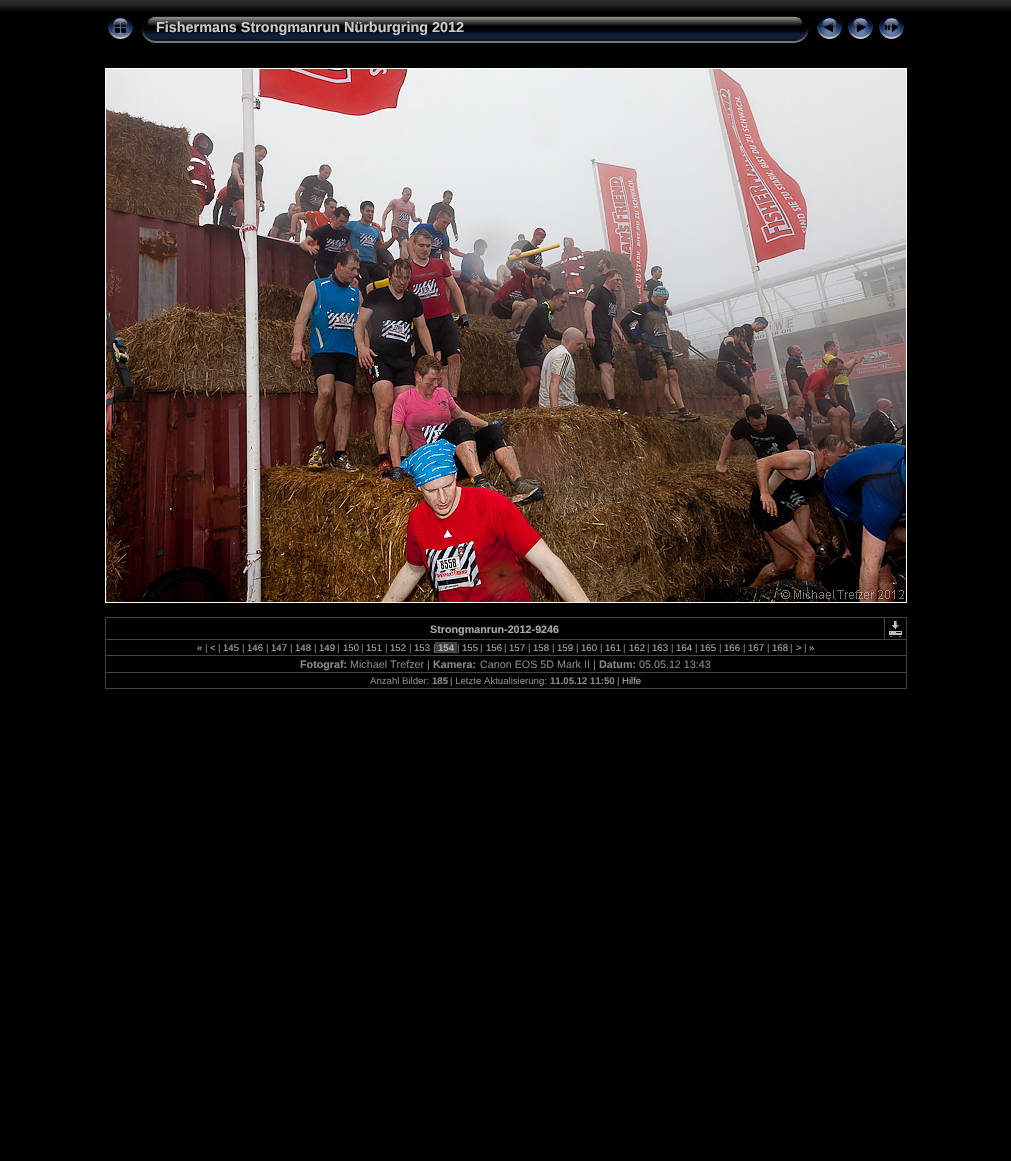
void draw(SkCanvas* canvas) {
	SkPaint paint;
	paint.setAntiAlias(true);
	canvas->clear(0xff000000);
	canvas->drawImageRect(SkImages::DeferredFromEncodedData(SkData::MakeFromFileName("img1.png")), SkRect::MakeXYWH(0, 0, 1011, 12), SkSamplingOptions());
	canvas->drawImageRect(SkImages::DeferredFromEncodedData(SkData::MakeFromFileName("img2.png")), SkRect::MakeXYWH(108, 16, 25, 23), SkSamplingOptions());
	canvas->drawImageRect(SkImages::DeferredFromEncodedData(SkData::MakeFromFileName("img3.png")), SkRect::MakeXYWH(141, 16, 15, 27), SkSamplingOptions());
	canvas->drawImageRect(SkImages::DeferredFromEncodedData(SkData::MakeFromFileName("img4.png")), SkRect::MakeXYWH(156, 16, 638, 27), SkSamplingOptions());
	SkFont f1(fontMgr->matchFamilyStyle("Liberation Sans", SkFontStyle::Bold()), 14.4);
	f1.setSubpixel(true);
	paint.setColor(0xffcccccc);
	canvas->drawString("Fishermans Strongmanrun Nürburgring 2012", 156, 32, f1, paint);
	canvas->drawImageRect(SkImages::DeferredFromEncodedData(SkData::MakeFromFileName("img5.png")), SkRect::MakeXYWH(794, 16, 15, 27), SkSamplingOptions());
	canvas->drawImageRect(SkImages::DeferredFromEncodedData(SkData::MakeFromFileName("img6.png")), SkRect::MakeXYWH(817, 16, 25, 23), SkSamplingOptions());
	canvas->drawImageRect(SkImages::DeferredFromEncodedData(SkData::MakeFromFileName("img7.png")), SkRect::MakeXYWH(848, 16, 25, 23), SkSamplingOptions());
	canvas->drawImageRect(SkImages::DeferredFromEncodedData(SkData::MakeFromFileName("img8.png")), SkRect::MakeXYWH(879, 16, 25, 23), SkSamplingOptions());
	paint.setStroke(true);
	paint.setStrokeWidth(1);
	paint.setColor(0xffffffff);
	canvas->drawRect(SkRect::MakeXYWH(105.5, 68.5, 801, 534), paint);
	canvas->drawImageRect(SkImages::DeferredFromEncodedData(SkData::MakeFromFileName("img9.png")), SkRect::MakeXYWH(106, 69, 800, 533), SkSamplingOptions());
	paint.setStroke(false);
	paint.setColor(0xff444444);
	canvas->drawRect(SkRect::MakeXYWH(105, 617, 802, 1), paint);
	canvas->drawRect(SkRect::MakeXYWH(906, 617, 1, 72), paint);
	canvas->drawRect(SkRect::MakeXYWH(105, 688, 802, 1), paint);
	canvas->drawRect(SkRect::MakeXYWH(105, 617, 1, 72), paint);
	SkFont f2(fontMgr->matchFamilyStyle("Liberation Sans", SkFontStyle::Bold()), 10.75);
	f2.setSubpixel(true);
	paint.setColor(0xffaaaaaa);
	canvas->drawString("Strongmanrun-2012-9246", 430, 633, f2, paint);
	paint.setColor(0xff444444);
	canvas->drawRect(SkRect::MakeXYWH(105, 639, 802, 1), paint);
	canvas->drawRect(SkRect::MakeXYWH(884, 617, 1, 23), paint);
	canvas->drawImageRect(SkImages::DeferredFromEncodedData(SkData::MakeFromFileName("img10.png")), SkRect::MakeXYWH(889, 621, 13, 16), SkSamplingOptions());
	SkFont f3(fontMgr->matchFamilyStyle("Liberation Sans", SkFontStyle::Normal()), 9.6);
	f3.setSubpixel(true);
	paint.setColor(0xffaaaaaa);
	canvas->drawString("«", 197, 651, f3, paint);
	paint.setColor(0xff888888);
	canvas->drawString("|", 205, 651, f3, paint);
	paint.setColor(0xffaaaaaa);
	canvas->drawString("<", 210, 651, f3, paint);
	paint.setColor(0xff888888);
	canvas->drawString("|", 218, 651, f3, paint);
	paint.setColor(0xffaaaaaa);
	canvas->drawString("145", 223, 651, f3, paint);
	paint.setColor(0xff888888);
	canvas->drawString("|", 242, 651, f3, paint);
	paint.setColor(0xffaaaaaa);
	canvas->drawString("146", 247, 651, f3, paint);
	paint.setColor(0xff888888);
	canvas->drawString("|", 266, 651, f3, paint);
	paint.setColor(0xffaaaaaa);
	canvas->drawString("147", 271, 651, f3, paint);
	paint.setColor(0xff888888);
	canvas->drawString("|", 290, 651, f3, paint);
	paint.setColor(0xffaaaaaa);
	canvas->drawString("148", 295, 651, f3, paint);
	paint.setColor(0xff888888);
	canvas->drawString("|", 314, 651, f3, paint);
	paint.setColor(0xffaaaaaa);
	canvas->drawString("149", 319, 651, f3, paint);
	paint.setColor(0xff888888);
	canvas->drawString("|", 337, 651, f3, paint);
	paint.setColor(0xffaaaaaa);
	canvas->drawString("150", 343, 651, f3, paint);
	paint.setColor(0xff888888);
	canvas->drawString("|", 361, 651, f3, paint);
	paint.setColor(0xffaaaaaa);
	canvas->drawString("151", 366, 651, f3, paint);
	paint.setColor(0xff888888);
	canvas->drawString("|", 385, 651, f3, paint);
	paint.setColor(0xffaaaaaa);
	canvas->drawString("152", 390, 651, f3, paint);
	paint.setColor(0xff888888);
	canvas->drawString("|", 409, 651, f3, paint);
	paint.setColor(0xffaaaaaa);
	canvas->drawString("153", 414, 651, f3, paint);
	paint.setColor(0xff888888);
	canvas->drawString("|", 433, 651, f3, paint);
	paint.setColor(0xff444444);
	canvas->drawRect(SkRect::MakeXYWH(435, 642, 22, 11), paint);
	SkFont f4(fontMgr->matchFamilyStyle("Liberation Sans", SkFontStyle::Bold()), 9.6);
	f4.setSubpixel(true);
	paint.setColor(0xffaaaaaa);
	canvas->drawString("154", 438, 651, f4, paint);
	paint.setColor(0xff888888);
	canvas->drawString("|", 457, 651, f3, paint);
	paint.setColor(0xffaaaaaa);
	canvas->drawString("155", 462, 651, f3, paint);
	paint.setColor(0xff888888);
	canvas->drawString("|", 480, 651, f3, paint);
	paint.setColor(0xffaaaaaa);
	canvas->drawString("156", 486, 651, f3, paint);
	paint.setColor(0xff888888);
	canvas->drawString("|", 504, 651, f3, paint);
	paint.setColor(0xffaaaaaa);
	canvas->drawString("157", 509, 651, f3, paint);
	paint.setColor(0xff888888);
	canvas->drawString("|", 528, 651, f3, paint);
	paint.setColor(0xffaaaaaa);
	canvas->drawString("158", 533, 651, f3, paint);
	paint.setColor(0xff888888);
	canvas->drawString("|", 552, 651, f3, paint);
	paint.setColor(0xffaaaaaa);
	canvas->drawString("159", 557, 651, f3, paint);
	paint.setColor(0xff888888);
	canvas->drawString("|", 576, 651, f3, paint);
	paint.setColor(0xffaaaaaa);
	canvas->drawString("160", 581, 651, f3, paint);
	paint.setColor(0xff888888);
	canvas->drawString("|", 600, 651, f3, paint);
	paint.setColor(0xffaaaaaa);
	canvas->drawString("161", 605, 651, f3, paint);
	paint.setColor(0xff888888);
	canvas->drawString("|", 623, 651, f3, paint);
	paint.setColor(0xffaaaaaa);
	canvas->drawString("162", 629, 651, f3, paint);
	paint.setColor(0xff888888);
	canvas->drawString("|", 647, 651, f3, paint);
	paint.setColor(0xffaaaaaa);
	canvas->drawString("163", 652, 651, f3, paint);
	paint.setColor(0xff888888);
	canvas->drawString("|", 671, 651, f3, paint);
	paint.setColor(0xffaaaaaa);
	canvas->drawString("164", 676, 651, f3, paint);
	paint.setColor(0xff888888);
	canvas->drawString("|", 695, 651, f3, paint);
	paint.setColor(0xffaaaaaa);
	canvas->drawString("165", 700, 651, f3, paint);
	paint.setColor(0xff888888);
	canvas->drawString("|", 719, 651, f3, paint);
	paint.setColor(0xffaaaaaa);
	canvas->drawString("166", 724, 651, f3, paint);
	paint.setColor(0xff888888);
	canvas->drawString("|", 743, 651, f3, paint);
	paint.setColor(0xffaaaaaa);
	canvas->drawString("167", 748, 651, f3, paint);
	paint.setColor(0xff888888);
	canvas->drawString("|", 767, 651, f3, paint);
	paint.setColor(0xffaaaaaa);
	canvas->drawString("168", 772, 651, f3, paint);
	paint.setColor(0xff888888);
	canvas->drawString("|", 790, 651, f3, paint);
	paint.setColor(0xffaaaaaa);
	canvas->drawString(">", 796, 651, f3, paint);
	paint.setColor(0xff888888);
	canvas->drawString("|", 804, 651, f3, paint);
	paint.setColor(0xffaaaaaa);
	canvas->drawString("»", 809, 651, f3, paint);
	paint.setColor(0xff444444);
	canvas->drawRect(SkRect::MakeXYWH(105, 655, 802, 1), paint);
	paint.setColor(0xff888888);
	canvas->drawString("Fotograf:", 300, 668, f2, paint);
	SkFont f5(fontMgr->matchFamilyStyle("Liberation Sans", SkFontStyle::Normal()), 10.75);
	f5.setSubpixel(true);
	canvas->drawString("Michael Trefzer |", 350, 668, f5, paint);
	canvas->drawString("Kamera:", 433, 668, f2, paint);
	canvas->drawString("Canon EOS 5D Mark II |", 480, 668, f5, paint);
	canvas->drawString("Datum:", 599, 668, f2, paint);
	canvas->drawString("05.05.12 13:43", 639, 668, f5, paint);
	paint.setColor(0xff444444);
	canvas->drawRect(SkRect::MakeXYWH(105, 672, 802, 1), paint);
	paint.setColor(0xff888888);
	canvas->drawString("Anzahl Bilder:", 370, 684, f3, paint);
	canvas->drawString("185", 432, 684, f4, paint);
	canvas->drawString("| Letzte Aktualisierung:", 450, 684, f3, paint);
	canvas->drawString("11.05.12 11:50", 550, 684, f4, paint);
	canvas->drawString("|", 617, 684, f3, paint);
	paint.setColor(0xffaaaaaa);
	canvas->drawString("Hilfe", 622, 684, f3, paint);
}
